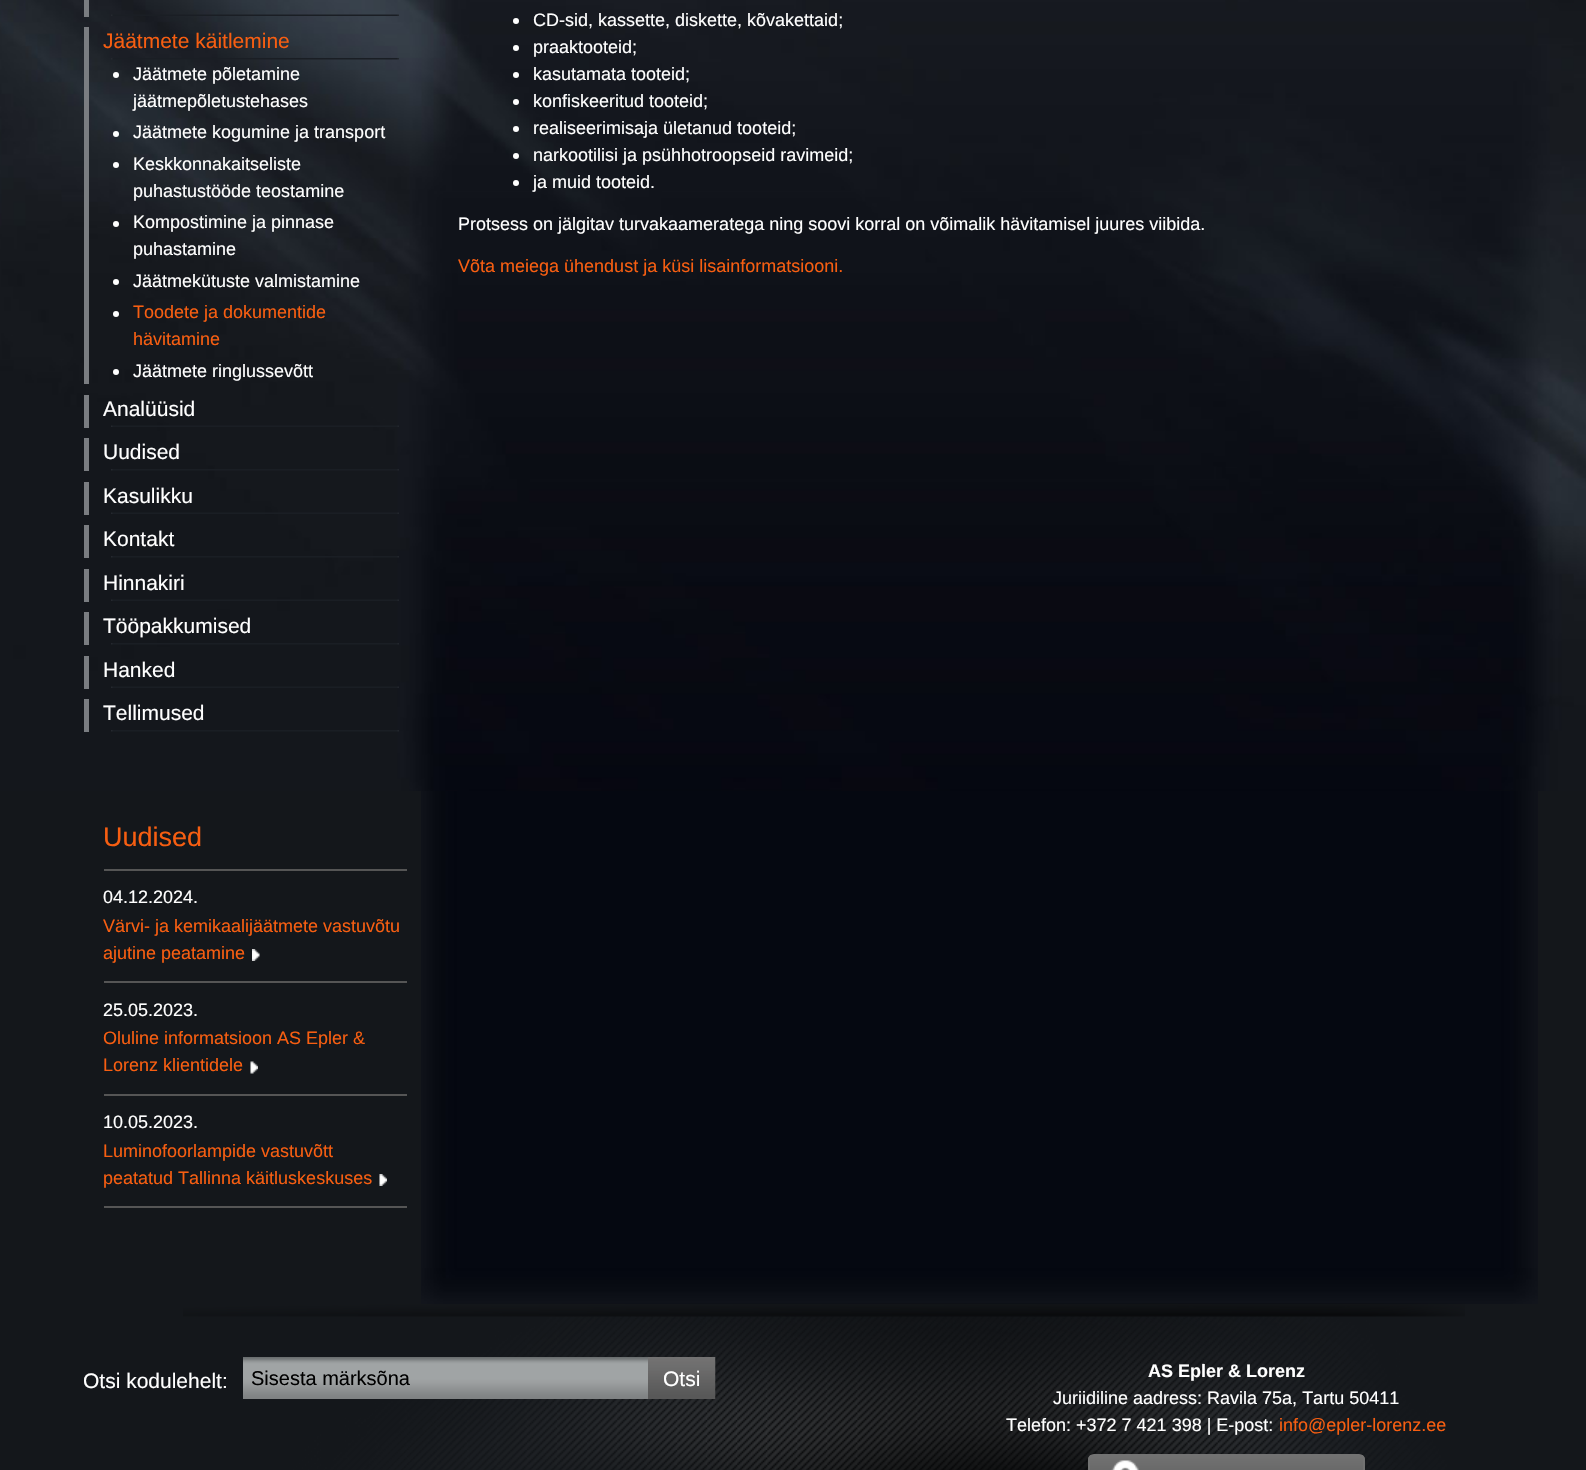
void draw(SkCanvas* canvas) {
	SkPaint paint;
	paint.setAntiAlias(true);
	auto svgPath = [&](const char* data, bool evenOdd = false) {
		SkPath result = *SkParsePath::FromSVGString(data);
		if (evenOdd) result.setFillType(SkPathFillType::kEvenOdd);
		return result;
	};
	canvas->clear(0xff14171b);
	canvas->drawImageRect(SkImages::DeferredFromEncodedData(SkData::MakeFromFileName("img1.png")), SkRect::MakeXYWH(421, 791, 1117, 477), SkSamplingOptions());
	canvas->drawImageRect(SkImages::DeferredFromEncodedData(SkData::MakeFromFileName("img2.png")), SkRect::MakeXYWH(0, 0, 1586, 791), SkSamplingOptions());
	paint.setColor(0xff7a7d81);
	canvas->drawRect(SkRect::MakeXYWH(84, 0, 5, 17), paint);
	canvas->drawImageRect(SkImages::DeferredFromEncodedData(SkData::MakeFromFileName("img3.png")), SkRect::MakeXYWH(111, 14, 288, 2), SkSamplingOptions());
	canvas->drawRect(SkRect::MakeXYWH(84, 27, 5, 357), paint);
	canvas->drawImageRect(SkImages::DeferredFromEncodedData(SkData::MakeFromFileName("img4.png")), SkRect::MakeXYWH(111, 58, 288, 2), SkSamplingOptions());
	SkFont f1(fontMgr->matchFamilyStyle("Liberation Sans", SkFontStyle::Normal()), 21);
	f1.setSubpixel(true);
	paint.setColor(0xfff75e11);
	canvas->drawString("Jäätmete käitlemine", 103, 48, f1, paint);
	paint.setColor(0xffffffff);
	canvas->drawCircle(116, 75, 3, paint);
	SkFont f2(fontMgr->matchFamilyStyle("Liberation Sans", SkFontStyle::Normal()), 18);
	f2.setSubpixel(true);
	canvas->drawString("Jäätmete põletamine", 133, 80, f2, paint);
	canvas->drawString("jäätmepõletustehases", 133, 107, f2, paint);
	canvas->drawCircle(116, 134, 3, paint);
	canvas->drawString("Jäätmete kogumine ja transport", 133, 138, f2, paint);
	canvas->drawCircle(116, 165, 3, paint);
	canvas->drawString("Keskkonnakaitseliste", 133, 170, f2, paint);
	canvas->drawString("puhastustööde teostamine", 133, 197, f2, paint);
	canvas->drawCircle(116, 224, 3, paint);
	canvas->drawString("Kompostimine ja pinnase", 133, 228, f2, paint);
	canvas->drawString("puhastamine", 133, 255, f2, paint);
	canvas->drawCircle(116, 282, 3, paint);
	canvas->drawString("Jäätmekütuste valmistamine", 133, 287, f2, paint);
	canvas->drawCircle(116, 314, 3, paint);
	paint.setColor(0xfff75e11);
	canvas->drawString("Toodete ja dokumentide", 133, 318, f2, paint);
	canvas->drawString("hävitamine", 133, 345, f2, paint);
	paint.setColor(0xffffffff);
	canvas->drawCircle(116, 372, 3, paint);
	canvas->drawString("Jäätmete ringlussevõtt", 133, 377, f2, paint);
	paint.setColor(0xff7a7d81);
	canvas->drawRect(SkRect::MakeXYWH(84, 395, 5, 33), paint);
	canvas->drawImageRect(SkImages::DeferredFromEncodedData(SkData::MakeFromFileName("img5.png")), SkRect::MakeXYWH(111, 425, 288, 2), SkSamplingOptions());
	paint.setColor(0xffffffff);
	canvas->drawString("Analüüsid", 103, 416, f1, paint);
	paint.setColor(0xff7a7d81);
	canvas->drawRect(SkRect::MakeXYWH(84, 438, 5, 33), paint);
	canvas->drawImageRect(SkImages::DeferredFromEncodedData(SkData::MakeFromFileName("img6.png")), SkRect::MakeXYWH(111, 469, 288, 2), SkSamplingOptions());
	paint.setColor(0xffffffff);
	canvas->drawString("Uudised", 103, 459, f1, paint);
	paint.setColor(0xff7a7d81);
	canvas->drawRect(SkRect::MakeXYWH(84, 482, 5, 33), paint);
	canvas->drawImageRect(SkImages::DeferredFromEncodedData(SkData::MakeFromFileName("img7.png")), SkRect::MakeXYWH(111, 512, 288, 2), SkSamplingOptions());
	paint.setColor(0xffffffff);
	canvas->drawString("Kasulikku", 103, 503, f1, paint);
	paint.setColor(0xff7a7d81);
	canvas->drawRect(SkRect::MakeXYWH(84, 525, 5, 33), paint);
	canvas->drawImageRect(SkImages::DeferredFromEncodedData(SkData::MakeFromFileName("img8.png")), SkRect::MakeXYWH(111, 556, 288, 2), SkSamplingOptions());
	paint.setColor(0xffffffff);
	canvas->drawString("Kontakt", 103, 546, f1, paint);
	paint.setColor(0xff7a7d81);
	canvas->drawRect(SkRect::MakeXYWH(84, 569, 5, 33), paint);
	canvas->drawImageRect(SkImages::DeferredFromEncodedData(SkData::MakeFromFileName("img9.png")), SkRect::MakeXYWH(111, 599, 288, 2), SkSamplingOptions());
	paint.setColor(0xffffffff);
	canvas->drawString("Hinnakiri", 103, 590, f1, paint);
	paint.setColor(0xff7a7d81);
	canvas->drawRect(SkRect::MakeXYWH(84, 612, 5, 33), paint);
	canvas->drawImageRect(SkImages::DeferredFromEncodedData(SkData::MakeFromFileName("img10.png")), SkRect::MakeXYWH(111, 643, 288, 2), SkSamplingOptions());
	paint.setColor(0xffffffff);
	canvas->drawString("Tööpakkumised", 103, 633, f1, paint);
	paint.setColor(0xff7a7d81);
	canvas->drawRect(SkRect::MakeXYWH(84, 656, 5, 33), paint);
	canvas->drawImageRect(SkImages::DeferredFromEncodedData(SkData::MakeFromFileName("img11.png")), SkRect::MakeXYWH(111, 686, 288, 2), SkSamplingOptions());
	paint.setColor(0xffffffff);
	canvas->drawString("Hanked", 103, 677, f1, paint);
	paint.setColor(0xff7a7d81);
	canvas->drawRect(SkRect::MakeXYWH(84, 699, 5, 33), paint);
	canvas->drawImageRect(SkImages::DeferredFromEncodedData(SkData::MakeFromFileName("img12.png")), SkRect::MakeXYWH(111, 730, 288, 2), SkSamplingOptions());
	paint.setColor(0xffffffff);
	canvas->drawString("Tellimused", 103, 720, f1, paint);
	paint.setColor(0xff555555);
	canvas->drawRect(SkRect::MakeXYWH(104, 869, 303, 2), paint);
	SkFont f3(fontMgr->matchFamilyStyle("Liberation Sans", SkFontStyle::Normal()), 27);
	f3.setSubpixel(true);
	paint.setColor(0xfff75e11);
	canvas->drawString("Uudised", 103, 846, f3, paint);
	paint.setColor(0xff555555);
	canvas->drawRect(SkRect::MakeXYWH(104, 981, 303, 2), paint);
	canvas->drawImageRect(SkImages::DeferredFromEncodedData(SkData::MakeFromFileName("img13.png")), SkRect::MakeXYWH(252, 949, 8, 12), SkSamplingOptions());
	paint.setColor(0xffffffff);
	canvas->drawString("04.12.2024.", 103, 903, f2, paint);
	paint.setColor(0xfff75e11);
	canvas->drawString("Värvi- ja kemikaalijäätmete vastuvõtu", 103, 932, f2, paint);
	canvas->drawString("ajutine peatamine", 103, 959, f2, paint);
	paint.setColor(0xff555555);
	canvas->drawRect(SkRect::MakeXYWH(104, 1094, 303, 2), paint);
	canvas->drawImageRect(SkImages::DeferredFromEncodedData(SkData::MakeFromFileName("img14.png")), SkRect::MakeXYWH(250, 1061, 8, 13), SkSamplingOptions());
	paint.setColor(0xffffffff);
	canvas->drawString("25.05.2023.", 103, 1016, f2, paint);
	paint.setColor(0xfff75e11);
	canvas->drawString("Oluline informatsioon AS Epler &", 103, 1044, f2, paint);
	canvas->drawString("Lorenz klientidele", 103, 1071, f2, paint);
	paint.setColor(0xff555555);
	canvas->drawRect(SkRect::MakeXYWH(104, 1206, 303, 2), paint);
	canvas->drawImageRect(SkImages::DeferredFromEncodedData(SkData::MakeFromFileName("img15.png")), SkRect::MakeXYWH(379, 1174, 8, 12), SkSamplingOptions());
	paint.setColor(0xffffffff);
	canvas->drawString("10.05.2023.", 103, 1128, f2, paint);
	paint.setColor(0xfff75e11);
	canvas->drawString("Luminofoorlampide vastuvõtt", 103, 1157, f2, paint);
	canvas->drawString("peatatud Tallinna käitluskeskuses", 103, 1184, f2, paint);
	paint.setColor(0xffffffff);
	canvas->drawCircle(516, 21, 3, paint);
	canvas->drawString("CD-sid, kassette, diskette, kõvakettaid;", 533, 26, f2, paint);
	canvas->drawCircle(516, 48, 3, paint);
	canvas->drawString("praaktooteid;", 533, 53, f2, paint);
	canvas->drawCircle(516, 75, 3, paint);
	canvas->drawString("kasutamata tooteid;", 533, 80, f2, paint);
	canvas->drawCircle(516, 102, 3, paint);
	canvas->drawString("konfiskeeritud tooteid;", 533, 107, f2, paint);
	canvas->drawCircle(516, 129, 3, paint);
	canvas->drawString("realiseerimisaja ületanud tooteid;", 533, 134, f2, paint);
	canvas->drawCircle(516, 156, 3, paint);
	canvas->drawString("narkootilisi ja psühhotroopseid ravimeid;", 533, 161, f2, paint);
	canvas->drawCircle(516, 183, 3, paint);
	canvas->drawString("ja muid tooteid.", 533, 188, f2, paint);
	canvas->drawString("Protsess on jälgitav turvakaameratega ning soovi korral on võimalik hävitamisel juures viibida.", 458, 230, f2, paint);
	paint.setColor(0xfff75e11);
	canvas->drawString("Võta meiega ühendust ja küsi lisainformatsiooni.", 458, 272, f2, paint);
	canvas->drawImageRect(SkImages::DeferredFromEncodedData(SkData::MakeFromFileName("img16.png")), SkRect::MakeXYWH(421, 1268, 1117, 36), SkSamplingOptions());
	canvas->drawImageRect(SkImages::DeferredFromEncodedData(SkData::MakeFromFileName("img17.png")), SkRect::MakeXYWH(183, 1303, 1282, 167), SkSamplingOptions());
	paint.setColor(0xffffffff);
	canvas->drawString("Otsi kodulehelt:", 83, 1388, f1, paint);
	canvas->drawImageRect(SkImages::DeferredFromEncodedData(SkData::MakeFromFileName("img18.png")), SkRect::MakeXYWH(243, 1357, 405, 42), SkSamplingOptions());
	SkFont f4(fontMgr->matchFamilyStyle("Liberation Sans", SkFontStyle::Normal()), 20);
	f4.setSubpixel(true);
	paint.setColor(0xff000000);
	canvas->drawString("Sisesta märksõna", 251, 1385, f4, paint);
	canvas->drawImageRect(SkImages::DeferredFromEncodedData(SkData::MakeFromFileName("img19.png")), SkRect::MakeXYWH(648, 1357, 68, 42), SkSamplingOptions());
	paint.setColor(0xffffffff);
	canvas->drawString("Otsi", 663, 1386, f1, paint);
	SkFont f5(fontMgr->matchFamilyStyle("Liberation Sans", SkFontStyle::Bold()), 18);
	f5.setSubpixel(true);
	canvas->drawString("AS Epler & Lorenz", 1148, 1377, f5, paint);
	canvas->drawString("Juriidiline aadress: Ravila 75a, Tartu 50411", 1053, 1404, f2, paint);
	canvas->drawString("Telefon: +372 7 421 398 | E-post:", 1006, 1431, f2, paint);
	paint.setColor(0xfff75e11);
	canvas->drawString("info@epler-lorenz.ee", 1279, 1431, f2, paint);
	canvas->save();
	canvas->clipPath(svgPath("M1094 1454H1359C1362.5 1454 1365 1456.5 1365 1460V1496C1365 1499.5 1362.5 1502 1359 1502H1094C1090.5 1502 1088 1499.5 1088 1496V1460C1088 1456.5 1090.5 1454 1094 1454Z"), true);
	{
		const SkColor colors[] = {0xff727272, 0xff585858};
		const float stops[] = {0, 1};
		const SkPoint ends[] = {{1226, 1455}, {1226, 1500}};
		paint.setShader(SkGradientShader::MakeLinear(ends, colors, stops, 2, SkTileMode::kClamp));
		paint.setAlpha(255);
	}
	canvas->drawRect(SkRect::MakeXYWH(1088, 1455, 277, 15), paint);
	canvas->restore();
	paint.setStroke(true);
	paint.setStrokeWidth(2);
	paint.setShader(nullptr);
	paint.setColor(0xff727272);
	canvas->drawRoundRect(SkRect::MakeXYWH(1089, 1455, 275, 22), 5, 5, paint);
	canvas->drawImageRect(SkImages::DeferredFromEncodedData(SkData::MakeFromFileName("img20.png")), SkRect::MakeXYWH(1111, 1460, 28, 10), SkSamplingOptions());
}
